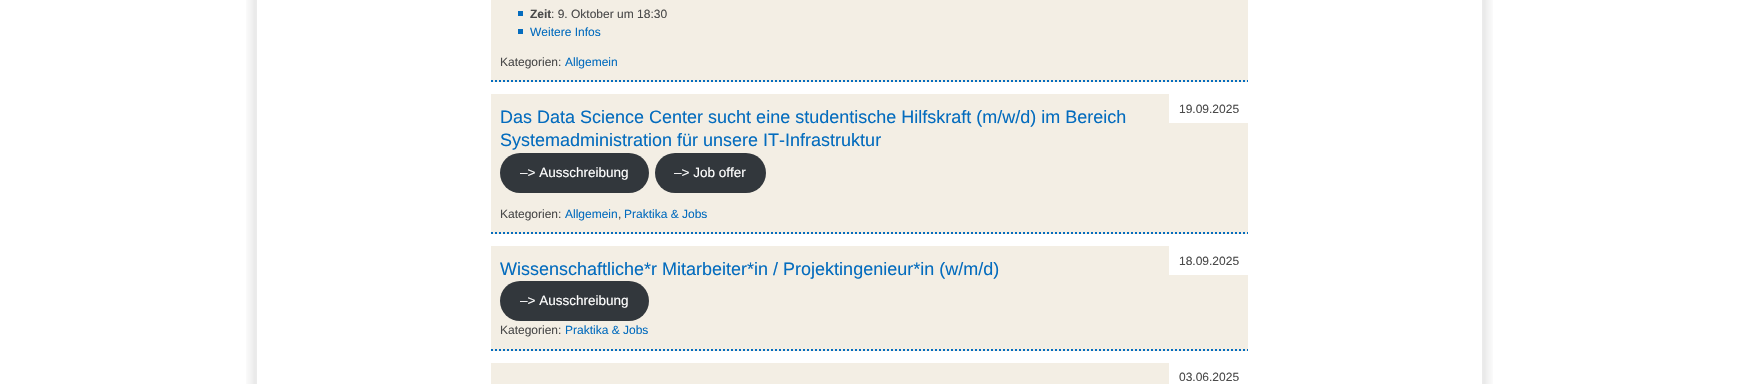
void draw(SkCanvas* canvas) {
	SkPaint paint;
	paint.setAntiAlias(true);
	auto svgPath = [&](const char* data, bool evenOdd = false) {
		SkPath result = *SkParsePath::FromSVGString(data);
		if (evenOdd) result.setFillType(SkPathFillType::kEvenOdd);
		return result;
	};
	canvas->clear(0xffffffff);
	canvas->drawImageRect(SkImages::DeferredFromEncodedData(SkData::MakeFromFileName("img1.png")), SkRect::MakeXYWH(246, 0, 11, 384), SkSamplingOptions());
	canvas->drawImageRect(SkImages::DeferredFromEncodedData(SkData::MakeFromFileName("img2.png")), SkRect::MakeXYWH(1482, 0, 11, 384), SkSamplingOptions());
	paint.setColor(0xfff3eee4);
	canvas->drawRect(SkRect::MakeXYWH(491, 0, 757, 82), paint);
	paint.setStroke(true);
	paint.setStrokeWidth(2);
	paint.setColor(0xff046cbe);
	paint.setPathEffect(SkDashPathEffect::Make({{2, 2}}, 0));
	canvas->drawPath(svgPath("M491 81H1248"), paint);
	paint.setPathEffect(nullptr);
	paint.setStroke(false);
	canvas->drawRect(SkRect::MakeXYWH(518, 11, 5, 5), paint);
	SkFont f1(fontMgr->matchFamilyStyle("Liberation Sans", SkFontStyle::Bold()), 12);
	f1.setSubpixel(true);
	paint.setColor(0xff4a4a4a);
	canvas->drawString("Zeit", 530, 18, f1, paint);
	SkFont f2(fontMgr->matchFamilyStyle("Liberation Sans", SkFontStyle::Normal()), 12);
	f2.setSubpixel(true);
	canvas->drawString(": 9. Oktober um 18:30", 551, 18, f2, paint);
	paint.setColor(0xff046cbe);
	canvas->drawRect(SkRect::MakeXYWH(518, 29, 5, 5), paint);
	canvas->drawString("Weitere Infos", 530, 36, f2, paint);
	paint.setColor(0xff4a4a4a);
	canvas->drawString("Kategorien:", 500, 66, f2, paint);
	paint.setColor(0xff046cbe);
	canvas->drawString("Allgemein", 565, 66, f2, paint);
	paint.setColor(0xfff3eee4);
	canvas->drawRect(SkRect::MakeXYWH(491, 94, 757, 140), paint);
	paint.setStroke(true);
	paint.setColor(0xff046cbe);
	paint.setPathEffect(SkDashPathEffect::Make({{2, 2}}, 0));
	canvas->drawPath(svgPath("M491 233H1248"), paint);
	paint.setPathEffect(nullptr);
	SkFont f3(fontMgr->matchFamilyStyle("Liberation Sans", SkFontStyle::Normal()), 18);
	f3.setSubpixel(true);
	paint.setStroke(false);
	canvas->drawString("Das Data Science Center sucht eine studentische Hilfskraft (m/w/d) im Bereich", 500, 123, f3, paint);
	canvas->drawString("Systemadministration für unsere IT-Infrastruktur", 500, 146, f3, paint);
	paint.setColor(0xffffffff);
	canvas->drawRect(SkRect::MakeXYWH(1169, 94, 79, 29), paint);
	paint.setColor(0xff4a4a4a);
	canvas->drawString("19.09.2025", 1179, 113, f2, paint);
	paint.setColor(0xff32373c);
	canvas->drawRoundRect(SkRect::MakeXYWH(500, 153, 149, 40), 20, 20, paint);
	SkFont f4(fontMgr->matchFamilyStyle("Liberation Sans", SkFontStyle::Normal()), 13.5);
	f4.setSubpixel(true);
	paint.setColor(0xffffffff);
	canvas->drawString("–> Ausschreibung", 520, 177, f4, paint);
	paint.setColor(0xff32373c);
	canvas->drawRoundRect(SkRect::MakeXYWH(655, 153, 111, 40), 20, 20, paint);
	paint.setColor(0xffffffff);
	canvas->drawString("–> Job offer", 674, 177, f4, paint);
	paint.setColor(0xff4a4a4a);
	canvas->drawString("Kategorien:", 500, 218, f2, paint);
	paint.setColor(0xff046cbe);
	canvas->drawString("Allgemein", 565, 218, f2, paint);
	paint.setColor(0xff4a4a4a);
	canvas->drawString(",", 618, 218, f2, paint);
	paint.setColor(0xff046cbe);
	canvas->drawString("Praktika & Jobs", 624, 218, f2, paint);
	paint.setColor(0xfff3eee4);
	canvas->drawRect(SkRect::MakeXYWH(491, 246, 757, 105), paint);
	paint.setStroke(true);
	paint.setColor(0xff046cbe);
	paint.setPathEffect(SkDashPathEffect::Make({{2, 2}}, 0));
	canvas->drawPath(svgPath("M491 350H1248"), paint);
	paint.setPathEffect(nullptr);
	paint.setStroke(false);
	canvas->drawString("Wissenschaftliche*r Mitarbeiter*in / Projektingenieur*in (w/m/d)", 500, 275, f3, paint);
	paint.setColor(0xffffffff);
	canvas->drawRect(SkRect::MakeXYWH(1169, 246, 79, 29), paint);
	paint.setColor(0xff4a4a4a);
	canvas->drawString("18.09.2025", 1179, 265, f2, paint);
	paint.setColor(0xff32373c);
	canvas->drawRoundRect(SkRect::MakeXYWH(500, 281, 149, 40), 20, 20, paint);
	paint.setColor(0xffffffff);
	canvas->drawString("–> Ausschreibung", 520, 305, f4, paint);
	paint.setColor(0xff4a4a4a);
	canvas->drawString("Kategorien:", 500, 334, f2, paint);
	paint.setColor(0xff046cbe);
	canvas->drawString("Praktika & Jobs", 565, 334, f2, paint);
	paint.setColor(0xfff3eee4);
	canvas->drawRect(SkRect::MakeXYWH(491, 363, 678, 21), paint);
	paint.setColor(0xff4a4a4a);
	canvas->drawString("03.06.2025", 1179, 381, f2, paint);
}
